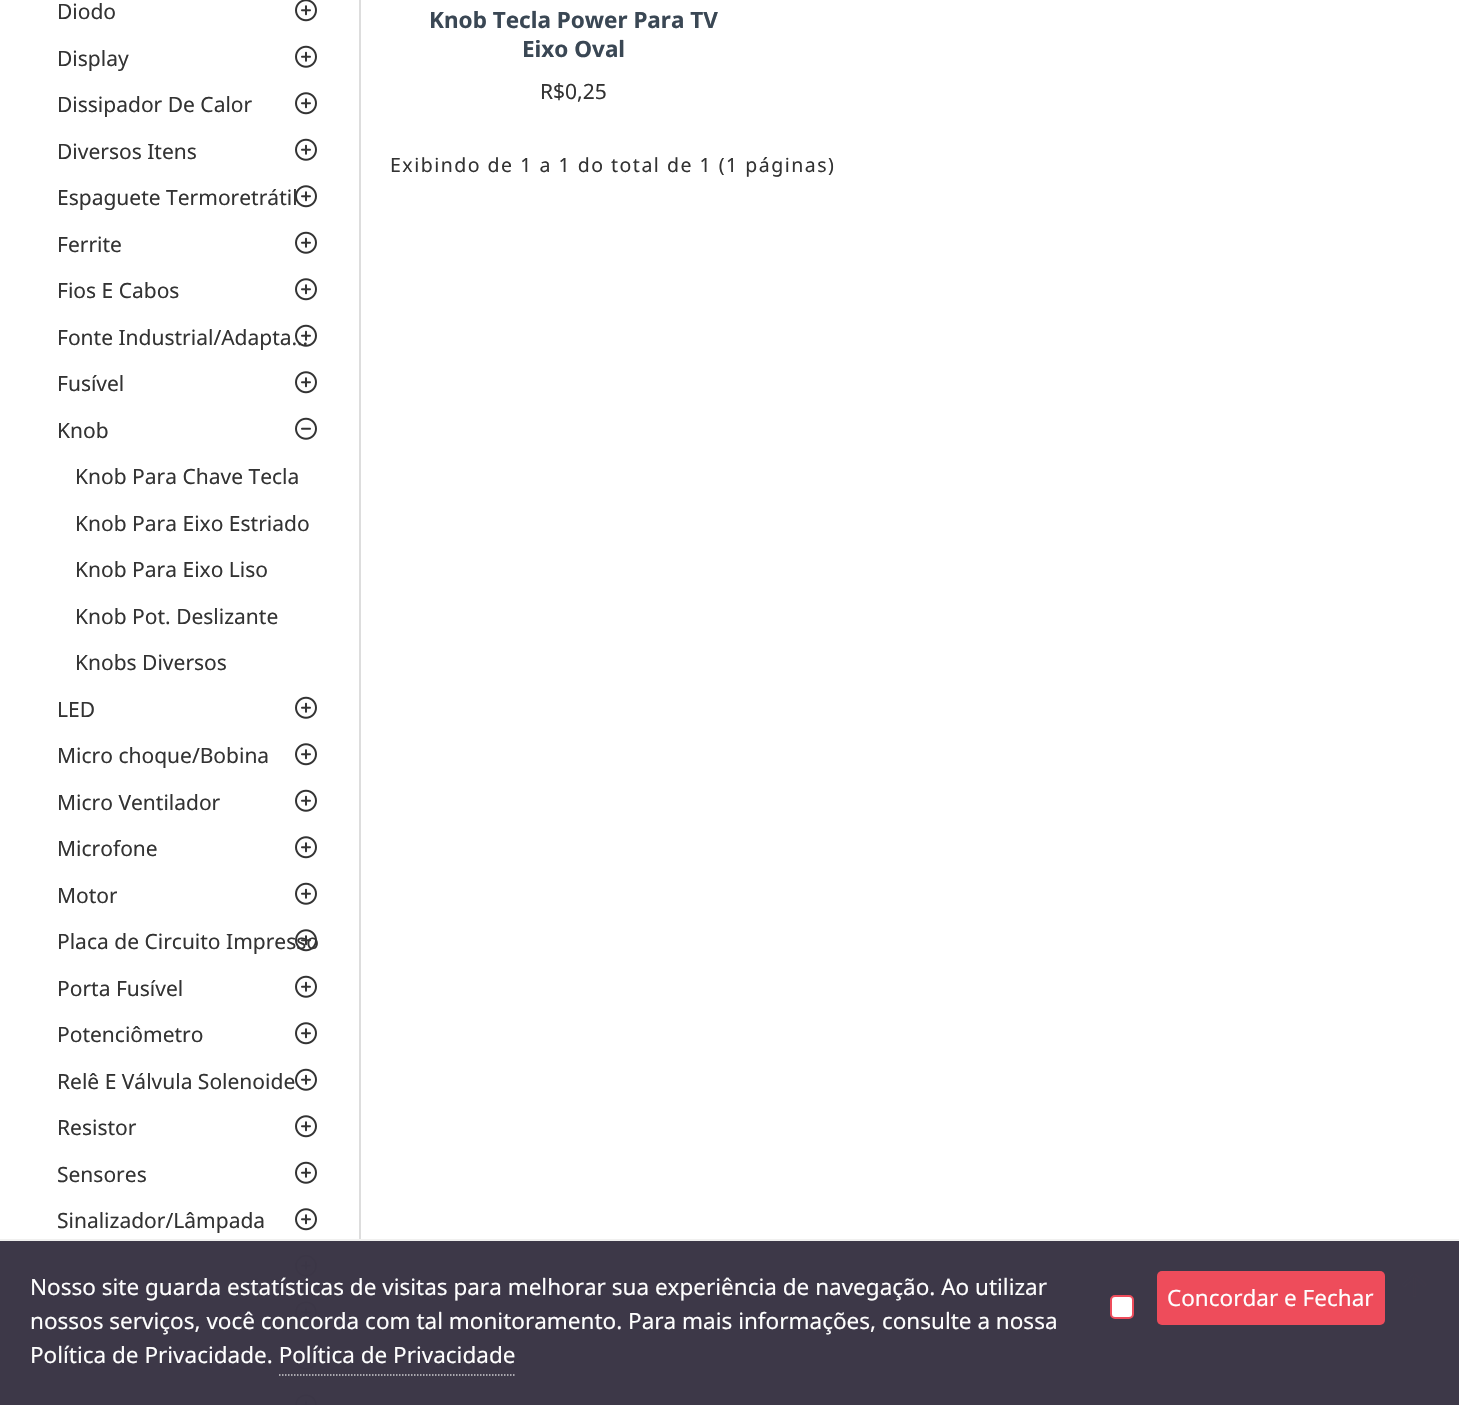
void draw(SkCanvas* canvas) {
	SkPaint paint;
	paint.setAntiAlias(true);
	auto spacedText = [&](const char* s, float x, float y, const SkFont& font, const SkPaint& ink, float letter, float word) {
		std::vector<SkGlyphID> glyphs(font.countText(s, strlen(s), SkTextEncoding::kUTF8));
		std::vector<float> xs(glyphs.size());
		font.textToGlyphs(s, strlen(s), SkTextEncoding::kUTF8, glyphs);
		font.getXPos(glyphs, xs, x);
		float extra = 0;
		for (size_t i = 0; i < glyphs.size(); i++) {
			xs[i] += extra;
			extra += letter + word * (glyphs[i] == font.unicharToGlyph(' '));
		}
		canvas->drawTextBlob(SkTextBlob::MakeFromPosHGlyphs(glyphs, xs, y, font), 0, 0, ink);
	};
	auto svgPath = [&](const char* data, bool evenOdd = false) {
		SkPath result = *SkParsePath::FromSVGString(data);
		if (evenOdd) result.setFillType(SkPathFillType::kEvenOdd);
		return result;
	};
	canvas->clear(0xffffffff);
	paint.setColor(0xff3d3848);
	canvas->drawRect(SkRect::MakeXYWH(0, 1241, 1459, 164), paint);
	paint.setColor(0xffdddddd);
	canvas->drawRect(SkRect::MakeXYWH(359, 0, 2, 1239), paint);
	paint.setColor(0xff3d3848);
	canvas->drawRect(SkRect::MakeXYWH(359, 1239, 2, 2), paint);
	SkFont f1(fontMgr->matchFamilyStyle("Noto Sans", SkFontStyle::Normal()), 21);
	f1.setSubpixel(true);
	paint.setColor(0xff333333);
	canvas->drawString("Diodo", 57, 19, f1, paint);
	canvas->drawImageRect(SkImages::DeferredFromEncodedData(SkData::MakeFromFileName("img1.png")), SkRect::MakeXYWH(295, 0, 22, 22), SkSamplingOptions());
	canvas->drawString("Display", 57, 66, f1, paint);
	canvas->drawImageRect(SkImages::DeferredFromEncodedData(SkData::MakeFromFileName("img2.png")), SkRect::MakeXYWH(295, 45, 22, 23), SkSamplingOptions());
	canvas->drawString("Dissipador De Calor", 57, 112, f1, paint);
	canvas->drawImageRect(SkImages::DeferredFromEncodedData(SkData::MakeFromFileName("img3.png")), SkRect::MakeXYWH(295, 92, 22, 23), SkSamplingOptions());
	canvas->drawString("Diversos Itens", 57, 159, f1, paint);
	canvas->drawImageRect(SkImages::DeferredFromEncodedData(SkData::MakeFromFileName("img2.png")), SkRect::MakeXYWH(295, 138, 22, 23), SkSamplingOptions());
	canvas->drawString("Espaguete Termoretrátil", 57, 205, f1, paint);
	canvas->drawImageRect(SkImages::DeferredFromEncodedData(SkData::MakeFromFileName("img4.png")), SkRect::MakeXYWH(295, 185, 22, 23), SkSamplingOptions());
	canvas->drawString("Ferrite", 57, 252, f1, paint);
	canvas->drawImageRect(SkImages::DeferredFromEncodedData(SkData::MakeFromFileName("img2.png")), SkRect::MakeXYWH(295, 231, 22, 23), SkSamplingOptions());
	canvas->drawString("Fios E Cabos", 57, 298, f1, paint);
	canvas->drawImageRect(SkImages::DeferredFromEncodedData(SkData::MakeFromFileName("img3.png")), SkRect::MakeXYWH(295, 278, 22, 23), SkSamplingOptions());
	canvas->drawString("Fonte Industrial/Adapta…", 57, 345, f1, paint);
	canvas->drawImageRect(SkImages::DeferredFromEncodedData(SkData::MakeFromFileName("img5.png")), SkRect::MakeXYWH(295, 324, 22, 23), SkSamplingOptions());
	canvas->drawString("Fusível", 57, 391, f1, paint);
	canvas->drawImageRect(SkImages::DeferredFromEncodedData(SkData::MakeFromFileName("img3.png")), SkRect::MakeXYWH(295, 371, 22, 23), SkSamplingOptions());
	canvas->drawString("Knob", 57, 438, f1, paint);
	canvas->drawImageRect(SkImages::DeferredFromEncodedData(SkData::MakeFromFileName("img6.png")), SkRect::MakeXYWH(295, 417, 22, 23), SkSamplingOptions());
	canvas->drawString("Knob Para Chave Tecla", 75, 484, f1, paint);
	canvas->drawString("Knob Para Eixo Estriado", 75, 531, f1, paint);
	canvas->drawString("Knob Para Eixo Liso", 75, 577, f1, paint);
	canvas->drawString("Knob Pot. Deslizante", 75, 624, f1, paint);
	canvas->drawString("Knobs Diversos", 75, 670, f1, paint);
	canvas->drawString("LED", 57, 717, f1, paint);
	canvas->drawImageRect(SkImages::DeferredFromEncodedData(SkData::MakeFromFileName("img2.png")), SkRect::MakeXYWH(295, 696, 22, 23), SkSamplingOptions());
	canvas->drawString("Micro choque/Bobina", 57, 763, f1, paint);
	canvas->drawImageRect(SkImages::DeferredFromEncodedData(SkData::MakeFromFileName("img3.png")), SkRect::MakeXYWH(295, 743, 22, 23), SkSamplingOptions());
	canvas->drawString("Micro Ventilador", 57, 810, f1, paint);
	canvas->drawImageRect(SkImages::DeferredFromEncodedData(SkData::MakeFromFileName("img2.png")), SkRect::MakeXYWH(295, 789, 22, 23), SkSamplingOptions());
	canvas->drawString("Microfone", 57, 856, f1, paint);
	canvas->drawImageRect(SkImages::DeferredFromEncodedData(SkData::MakeFromFileName("img3.png")), SkRect::MakeXYWH(295, 836, 22, 23), SkSamplingOptions());
	canvas->save();
	canvas->clipRect(SkRect::MakeXYWH(57, 879, 60, 32));
	canvas->drawString("Motor", 57, 903, f1, paint);
	canvas->restore();
	canvas->drawImageRect(SkImages::DeferredFromEncodedData(SkData::MakeFromFileName("img2.png")), SkRect::MakeXYWH(295, 882, 22, 23), SkSamplingOptions());
	canvas->drawString("Placa de Circuito Impresso", 57, 949, f1, paint);
	canvas->drawImageRect(SkImages::DeferredFromEncodedData(SkData::MakeFromFileName("img7.png")), SkRect::MakeXYWH(295, 929, 22, 23), SkSamplingOptions());
	canvas->drawString("Porta Fusível", 57, 996, f1, paint);
	canvas->drawImageRect(SkImages::DeferredFromEncodedData(SkData::MakeFromFileName("img2.png")), SkRect::MakeXYWH(295, 975, 22, 23), SkSamplingOptions());
	canvas->drawString("Potenciômetro", 57, 1042, f1, paint);
	canvas->drawImageRect(SkImages::DeferredFromEncodedData(SkData::MakeFromFileName("img3.png")), SkRect::MakeXYWH(295, 1022, 22, 23), SkSamplingOptions());
	canvas->drawString("Relê E Válvula Solenoide", 57, 1089, f1, paint);
	canvas->drawImageRect(SkImages::DeferredFromEncodedData(SkData::MakeFromFileName("img2.png")), SkRect::MakeXYWH(295, 1068, 22, 23), SkSamplingOptions());
	canvas->drawString("Resistor", 57, 1135, f1, paint);
	canvas->drawImageRect(SkImages::DeferredFromEncodedData(SkData::MakeFromFileName("img3.png")), SkRect::MakeXYWH(295, 1115, 22, 23), SkSamplingOptions());
	canvas->drawString("Sensores", 57, 1182, f1, paint);
	canvas->drawImageRect(SkImages::DeferredFromEncodedData(SkData::MakeFromFileName("img2.png")), SkRect::MakeXYWH(295, 1161, 22, 23), SkSamplingOptions());
	canvas->drawString("Sinalizador/Lâmpada", 57, 1228, f1, paint);
	canvas->drawImageRect(SkImages::DeferredFromEncodedData(SkData::MakeFromFileName("img3.png")), SkRect::MakeXYWH(295, 1208, 22, 23), SkSamplingOptions());
	canvas->drawImageRect(SkImages::DeferredFromEncodedData(SkData::MakeFromFileName("img8.png")), SkRect::MakeXYWH(295, 1254, 22, 23), SkSamplingOptions());
	canvas->drawImageRect(SkImages::DeferredFromEncodedData(SkData::MakeFromFileName("img9.png")), SkRect::MakeXYWH(295, 1301, 22, 23), SkSamplingOptions());
	canvas->drawImageRect(SkImages::DeferredFromEncodedData(SkData::MakeFromFileName("img8.png")), SkRect::MakeXYWH(295, 1347, 22, 23), SkSamplingOptions());
	canvas->drawImageRect(SkImages::DeferredFromEncodedData(SkData::MakeFromFileName("img10.png")), SkRect::MakeXYWH(295, 1394, 22, 11), SkSamplingOptions());
	SkFont f2(fontMgr->matchFamilyStyle("Noto Sans", SkFontStyle::Bold()), 22.5);
	f2.setSubpixel(true);
	paint.setColor(0xff3a4754);
	canvas->drawString("Knob Tecla Power Para TV", 429, 28, f2, paint);
	canvas->drawString("Eixo Oval", 522, 57, f2, paint);
	paint.setColor(0xff333333);
	canvas->drawString("R$0,25", 540, 99, f1, paint);
	SkFont f3(fontMgr->matchFamilyStyle("Noto Sans", SkFontStyle::Normal()), 19.5);
	f3.setSubpixel(true);
	spacedText("Exibindo de 1 a 1 do total de 1 (1 páginas)", 390, 172, f3, paint, 1.5, 0);
	paint.setColor(0xfff0f0ef);
	canvas->drawRect(SkRect::MakeXYWH(0, 1239, 1459, 2), paint);
	SkFont f4(fontMgr->matchFamilyStyle("Noto Sans", SkFontStyle::Normal()), 22.5);
	f4.setSubpixel(true);
	paint.setColor(0xfffefefe);
	canvas->drawString("Nosso site guarda estatísticas de visitas para melhorar sua experiência de navegação. Ao utilizar", 30, 1295, f4, paint);
	canvas->drawString("nossos serviços, você concorda com tal monitoramento. Para mais informações, consulte a nossa", 30, 1329, f4, paint);
	canvas->drawString("Política de Privacidade. Política de Privacidade", 30, 1363, f4, paint);
	paint.setStroke(true);
	paint.setStrokeWidth(1.5);
	paint.setColor(0xffcdccd0);
	paint.setPathEffect(SkDashPathEffect::Make({{1.5f, 1.5f}}, 0));
	canvas->drawPath(svgPath("M279 1375H516"), paint);
	paint.setPathEffect(nullptr);
	paint.setStroke(false);
	paint.setColor(0xffffffff);
	canvas->drawRoundRect(SkRect::MakeXYWH(1111, 1296, 22, 22), 4, 4, paint);
	paint.setStroke(true);
	paint.setStrokeWidth(2);
	paint.setColor(0xffee4c5b);
	canvas->drawRoundRect(SkRect::MakeXYWH(1111, 1296, 22, 22), 4, 4, paint);
	paint.setStroke(false);
	canvas->drawRoundRect(SkRect::MakeXYWH(1157, 1271, 228, 54), 5, 5, paint);
	paint.setColor(0xfffefefe);
	canvas->drawString("Concordar e Fechar", 1167, 1306, f4, paint);
	canvas->drawImageRect(SkImages::DeferredFromEncodedData(SkData::MakeFromFileName("img11.png")), SkRect::MakeXYWH(1402, 1273, 25, 24), SkSamplingOptions());
}
